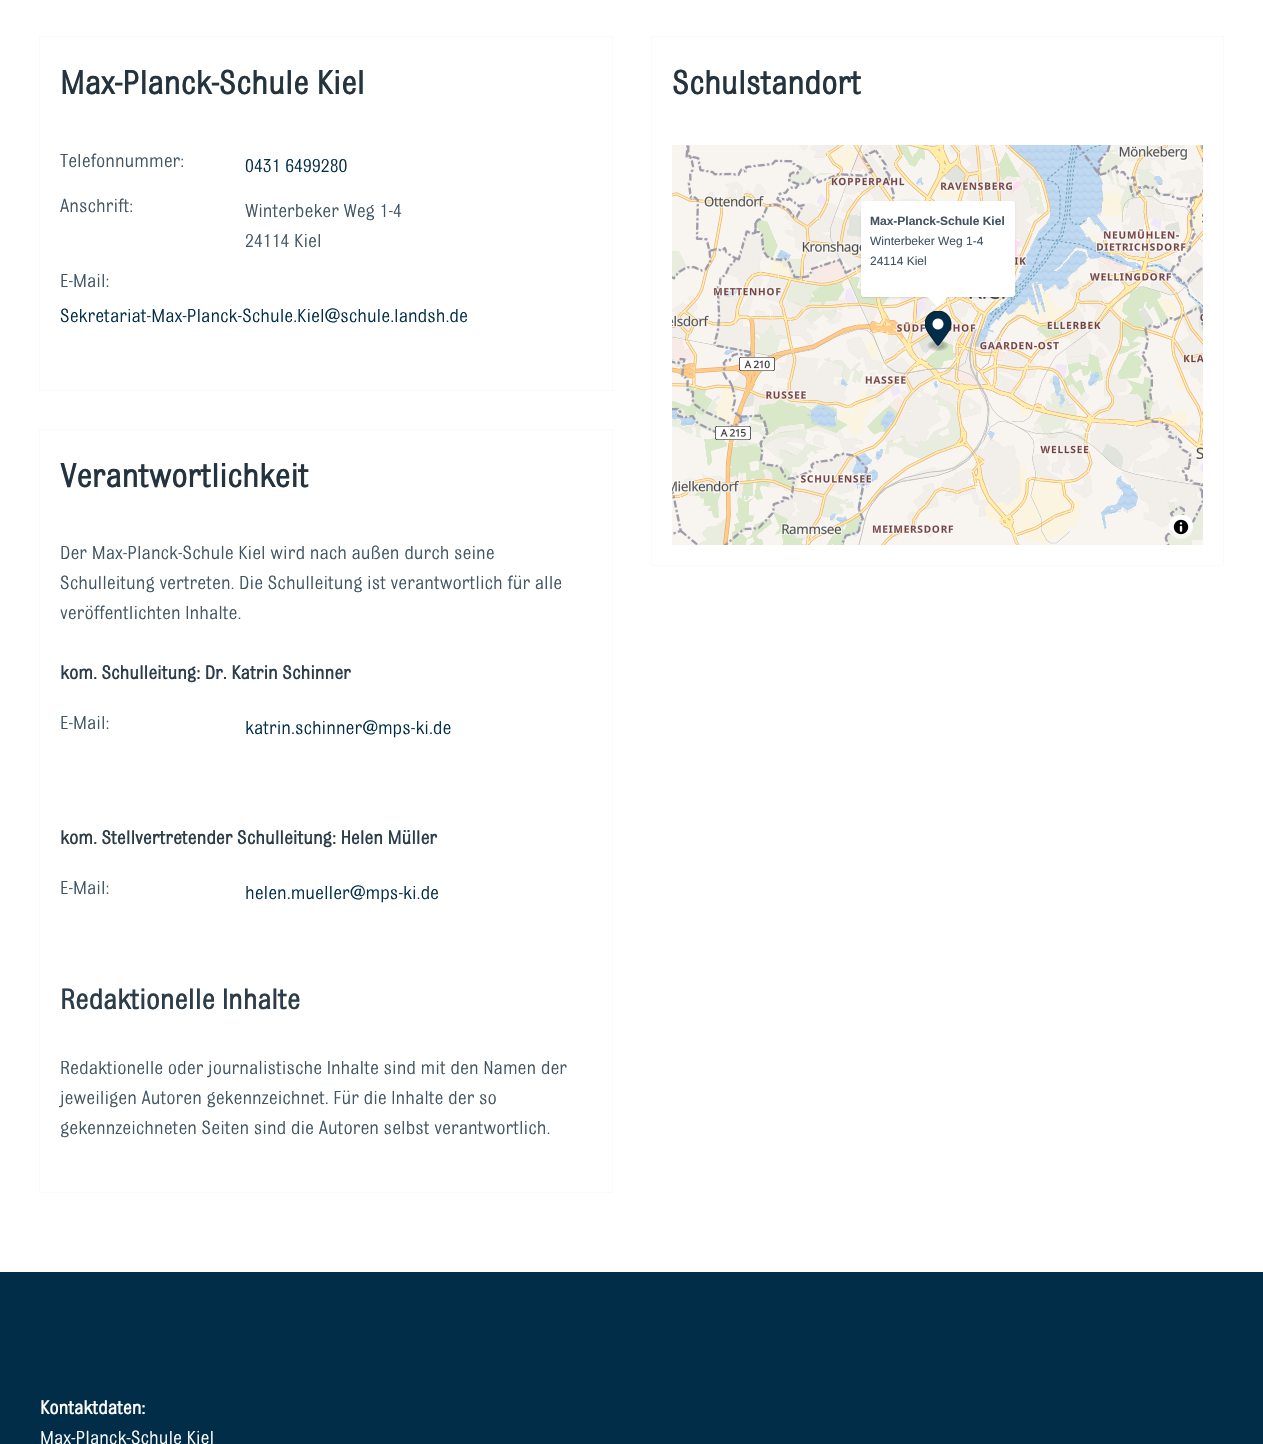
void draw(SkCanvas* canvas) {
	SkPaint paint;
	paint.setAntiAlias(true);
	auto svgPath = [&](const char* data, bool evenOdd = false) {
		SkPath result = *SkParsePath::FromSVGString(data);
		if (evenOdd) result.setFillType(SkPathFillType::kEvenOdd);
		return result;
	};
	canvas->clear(0xffffffff);
	paint.setStroke(true);
	paint.setStrokeWidth(1);
	paint.setColor(0xfffafafa);
	canvas->drawRect(SkRect::MakeXYWH(39.5, 36.5, 573, 354), paint);
	SkFont f1(fontMgr->matchFamilyStyle("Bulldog", SkFontStyle::Bold()), 35);
	f1.setSubpixel(true);
	paint.setStroke(false);
	paint.setColor(0xff24333e);
	canvas->drawString("Max-Planck-Schule Kiel", 60, 94, f1, paint);
	SkFont f2(fontMgr->matchFamilyStyle("Bulldog", SkFontStyle::Normal()), 20);
	f2.setSubpixel(true);
	paint.setColor(0xff415462);
	canvas->drawString("Telefonnummer:", 60, 167, f2, paint);
	paint.setColor(0xff012d48);
	canvas->drawString("0431 6499280", 245, 172, f2, paint);
	paint.setColor(0xff415462);
	canvas->drawString("Anschrift:", 60, 212, f2, paint);
	canvas->drawString("Winterbeker Weg 1-4", 245, 217, f2, paint);
	canvas->drawString("24114 Kiel", 245, 247, f2, paint);
	canvas->drawString("E-Mail:", 60, 287, f2, paint);
	paint.setColor(0xff012d48);
	canvas->drawString("Sekretariat-Max-Planck-Schule.Kiel@schule.landsh.de", 60, 322, f2, paint);
	paint.setStroke(true);
	paint.setColor(0xfff9fafa);
	canvas->drawRect(SkRect::MakeXYWH(39.5, 429.5, 573, 763), paint);
	paint.setStroke(false);
	paint.setColor(0xff24333e);
	canvas->drawString("Verantwortlichkeit", 60, 487, f1, paint);
	paint.setColor(0xff415462);
	canvas->drawString("Der Max-Planck-Schule Kiel wird nach außen durch seine", 60, 559, f2, paint);
	canvas->drawString("Schulleitung vertreten. Die Schulleitung ist verantwortlich für alle", 60, 589, f2, paint);
	canvas->drawString("veröffentlichten Inhalte.", 60, 619, f2, paint);
	SkFont f3(fontMgr->matchFamilyStyle("Bulldog", SkFontStyle::Bold()), 20);
	f3.setSubpixel(true);
	paint.setColor(0xff2c3d49);
	canvas->drawString("kom. Schulleitung: Dr. Katrin Schinner", 60, 679, f3, paint);
	paint.setColor(0xff415462);
	canvas->drawString("E-Mail:", 60, 729, f2, paint);
	paint.setColor(0xff012d48);
	canvas->drawString("katrin.schinner@mps-ki.de", 245, 734, f2, paint);
	paint.setColor(0xff2c3d49);
	canvas->drawString("kom. Stellvertretender Schulleitung: Helen Müller", 60, 844, f3, paint);
	paint.setColor(0xff415462);
	canvas->drawString("E-Mail:", 60, 894, f2, paint);
	paint.setColor(0xff012d48);
	canvas->drawString("helen.mueller@mps-ki.de", 245, 899, f2, paint);
	SkFont f4(fontMgr->matchFamilyStyle("Bulldog", SkFontStyle::Bold()), 30);
	f4.setSubpixel(true);
	paint.setColor(0xff2c3d49);
	canvas->drawString("Redaktionelle Inhalte", 60, 1009, f4, paint);
	paint.setColor(0xff415462);
	canvas->drawString("Redaktionelle oder journalistische Inhalte sind mit den Namen der", 60, 1074, f2, paint);
	canvas->drawString("jeweiligen Autoren gekennzeichnet. Für die Inhalte der so", 60, 1104, f2, paint);
	canvas->drawString("gekennzeichneten Seiten sind die Autoren selbst verantwortlich.", 60, 1134, f2, paint);
	paint.setStroke(true);
	paint.setColor(0xfff9fafa);
	canvas->drawRect(SkRect::MakeXYWH(651.5, 36.5, 572, 529), paint);
	paint.setStroke(false);
	paint.setColor(0xff24333e);
	canvas->drawString("Schulstandort", 672, 94, f1, paint);
	canvas->drawImageRect(SkImages::DeferredFromEncodedData(SkData::MakeFromFileName("img1.png")), SkRect::MakeXYWH(672, 145, 531, 400), SkSamplingOptions());
	canvas->drawImageRect(SkImages::DeferredFromEncodedData(SkData::MakeFromFileName("img2.png")), SkRect::MakeXYWH(925, 311, 27, 40), SkSamplingOptions());
	paint.setColor(0x1a000000);
	paint.setMaskFilter(SkMaskFilter::MakeBlur(kNormal_SkBlurStyle, 1));
	canvas->drawRoundRect(SkRect::MakeXYWH(861, 202, 154, 96), 3, 3, paint);
	paint.setMaskFilter(nullptr);
	paint.setColor(0xffffffff);
	canvas->drawRoundRect(SkRect::MakeXYWH(861, 201, 154, 96), 3, 3, paint);
	SkFont f5(fontMgr->matchFamilyStyle("Liberation Sans", SkFontStyle::Bold()), 12);
	f5.setSubpixel(true);
	paint.setColor(0xff415462);
	canvas->drawString("Max-Planck-Schule Kiel", 870, 225, f5, paint);
	SkFont f6(fontMgr->matchFamilyStyle("Liberation Sans", SkFontStyle::Normal()), 12);
	f6.setSubpixel(true);
	canvas->drawString("Winterbeker Weg 1-4", 870, 245, f6, paint);
	canvas->drawString("24114 Kiel", 870, 265, f6, paint);
	paint.setColor(0xffffffff);
	canvas->drawPath(svgPath("M927.5 297H947.5L937.5 307Z"), paint);
	canvas->drawRoundRect(SkRect::MakeXYWH(1169, 515, 24, 20), 10, 10, paint);
	paint.setColor(0x80ffffff);
	canvas->drawCircle(1181, 527, 12, paint);
	canvas->drawImageRect(SkImages::DeferredFromEncodedData(SkData::MakeFromFileName("img3.png")), SkRect::MakeXYWH(1173, 519, 16, 16), SkSamplingOptions());
	paint.setColor(0xff012d48);
	canvas->drawRect(SkRect::MakeXYWH(0, 1272, 1263, 172), paint);
	paint.setColor(0xffffffff);
	canvas->drawString("Kontaktdaten:", 40, 1414, f3, paint);
	canvas->drawString("Max-Planck-Schule Kiel", 40, 1444, f2, paint);
}
